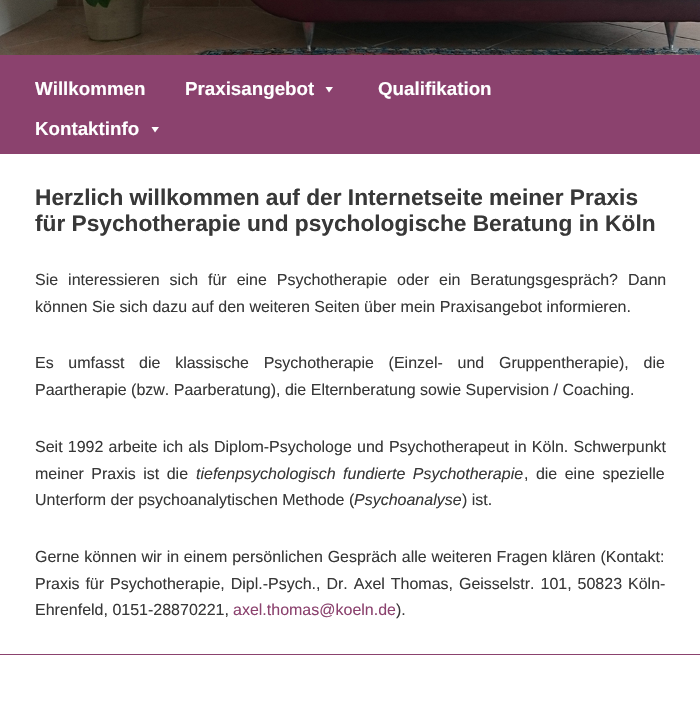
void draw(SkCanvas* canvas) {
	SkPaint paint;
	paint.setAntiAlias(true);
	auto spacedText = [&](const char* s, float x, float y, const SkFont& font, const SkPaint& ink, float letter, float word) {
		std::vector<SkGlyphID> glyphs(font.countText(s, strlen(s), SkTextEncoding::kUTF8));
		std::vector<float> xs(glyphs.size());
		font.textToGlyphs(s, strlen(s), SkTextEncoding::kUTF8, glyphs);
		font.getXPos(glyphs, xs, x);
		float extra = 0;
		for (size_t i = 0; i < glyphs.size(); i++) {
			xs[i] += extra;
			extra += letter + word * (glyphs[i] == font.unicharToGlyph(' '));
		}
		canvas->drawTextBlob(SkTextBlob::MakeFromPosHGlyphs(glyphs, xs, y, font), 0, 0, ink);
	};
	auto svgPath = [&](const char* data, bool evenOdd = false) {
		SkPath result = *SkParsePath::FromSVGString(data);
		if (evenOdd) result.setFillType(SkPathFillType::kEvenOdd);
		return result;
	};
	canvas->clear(0xffffffff);
	paint.setColor(0xff8b426e);
	canvas->drawRect(SkRect::MakeXYWH(0, 55, 700, 99), paint);
	canvas->drawImageRect(SkImages::DeferredFromEncodedData(SkData::MakeFromFileName("img1.png")), SkRect::MakeXYWH(0, 0, 700, 55), SkSamplingOptions());
	SkFont f1(fontMgr->matchFamilyStyle("Liberation Sans", SkFontStyle::Bold()), 18.75);
	f1.setSubpixel(true);
	paint.setColor(0xffffffff);
	canvas->drawString("Willkommen", 35, 95, f1, paint);
	canvas->drawString("Praxisangebot", 185, 95, f1, paint);
	canvas->drawPath(svgPath("M333 87L329 92.5L325.5 87Z"), paint);
	canvas->drawString("Qualifikation", 378, 95, f1, paint);
	canvas->drawString("Kontaktinfo", 35, 135, f1, paint);
	canvas->drawPath(svgPath("M159 127L155 132.5L151.5 127Z"), paint);
	SkFont f2(fontMgr->matchFamilyStyle("Liberation Sans", SkFontStyle::Bold()), 22.7);
	f2.setSubpixel(true);
	paint.setColor(0xff383838);
	canvas->drawString("Herzlich willkommen auf der Internetseite meiner Praxis", 35, 205, f2, paint);
	canvas->drawString("für Psychotherapie und psychologische Beratung in Köln", 35, 231, f2, paint);
	SkFont f3(fontMgr->matchFamilyStyle("Liberation Sans", SkFontStyle::Normal()), 16);
	f3.setSubpixel(true);
	spacedText("Sie interessieren sich für eine Psychotherapie oder ein Beratungsgespräch? Dann", 35, 285, f3, paint, 0, 5.5);
	canvas->drawString("können Sie sich dazu auf den weiteren Seiten über mein Praxisangebot informieren.", 35, 312, f3, paint);
	spacedText("Es umfasst die klassische Psychotherapie (Einzel- und Gruppentherapie), die", 35, 368, f3, paint, 0, 10.25);
	canvas->drawString("Paartherapie (bzw. Paarberatung), die Elternberatung sowie Supervision / Coaching.", 35, 395, f3, paint);
	spacedText("Seit 1992 arbeite ich als Diplom-Psychologe und Psychotherapeut in Köln. Schwerpunkt", 35, 452, f3, paint, 0, 0.75);
	spacedText("meiner Praxis ist die", 35, 479, f3, paint, 0, 3);
	SkFont f4(fontMgr->matchFamilyStyle("Liberation Sans", SkFontStyle::Italic()), 16);
	f4.setSubpixel(true);
	spacedText("tiefenpsychologisch fundierte Psychotherapie", 196, 479, f4, paint, 0, 3);
	spacedText(", die eine spezielle", 524, 479, f3, paint, 0, 3);
	canvas->drawString("Unterform der psychoanalytischen Methode (", 35, 505, f3, paint);
	canvas->drawString("Psychoanalyse", 354, 505, f4, paint);
	canvas->drawString(") ist.", 462, 505, f3, paint);
	spacedText("Gerne können wir in einem persönlichen Gespräch alle weiteren Fragen klären (Kontakt:", 35, 562, f3, paint, 0, 0.3);
	spacedText("Praxis für Psychotherapie, Dipl.-Psych., Dr. Axel Thomas, Geisselstr. 101, 50823 Köln-", 35, 589, f3, paint, 0, 1.5);
	canvas->drawString("Ehrenfeld, 0151-28870221,", 35, 615, f3, paint);
	paint.setColor(0xff8b426e);
	canvas->drawString("axel.thomas@koeln.de", 233, 615, f3, paint);
	paint.setColor(0xff383838);
	canvas->drawString(").", 396, 615, f3, paint);
	paint.setColor(0xff8b426e);
	canvas->drawRect(SkRect::MakeXYWH(0, 654, 700, 1), paint);
}
